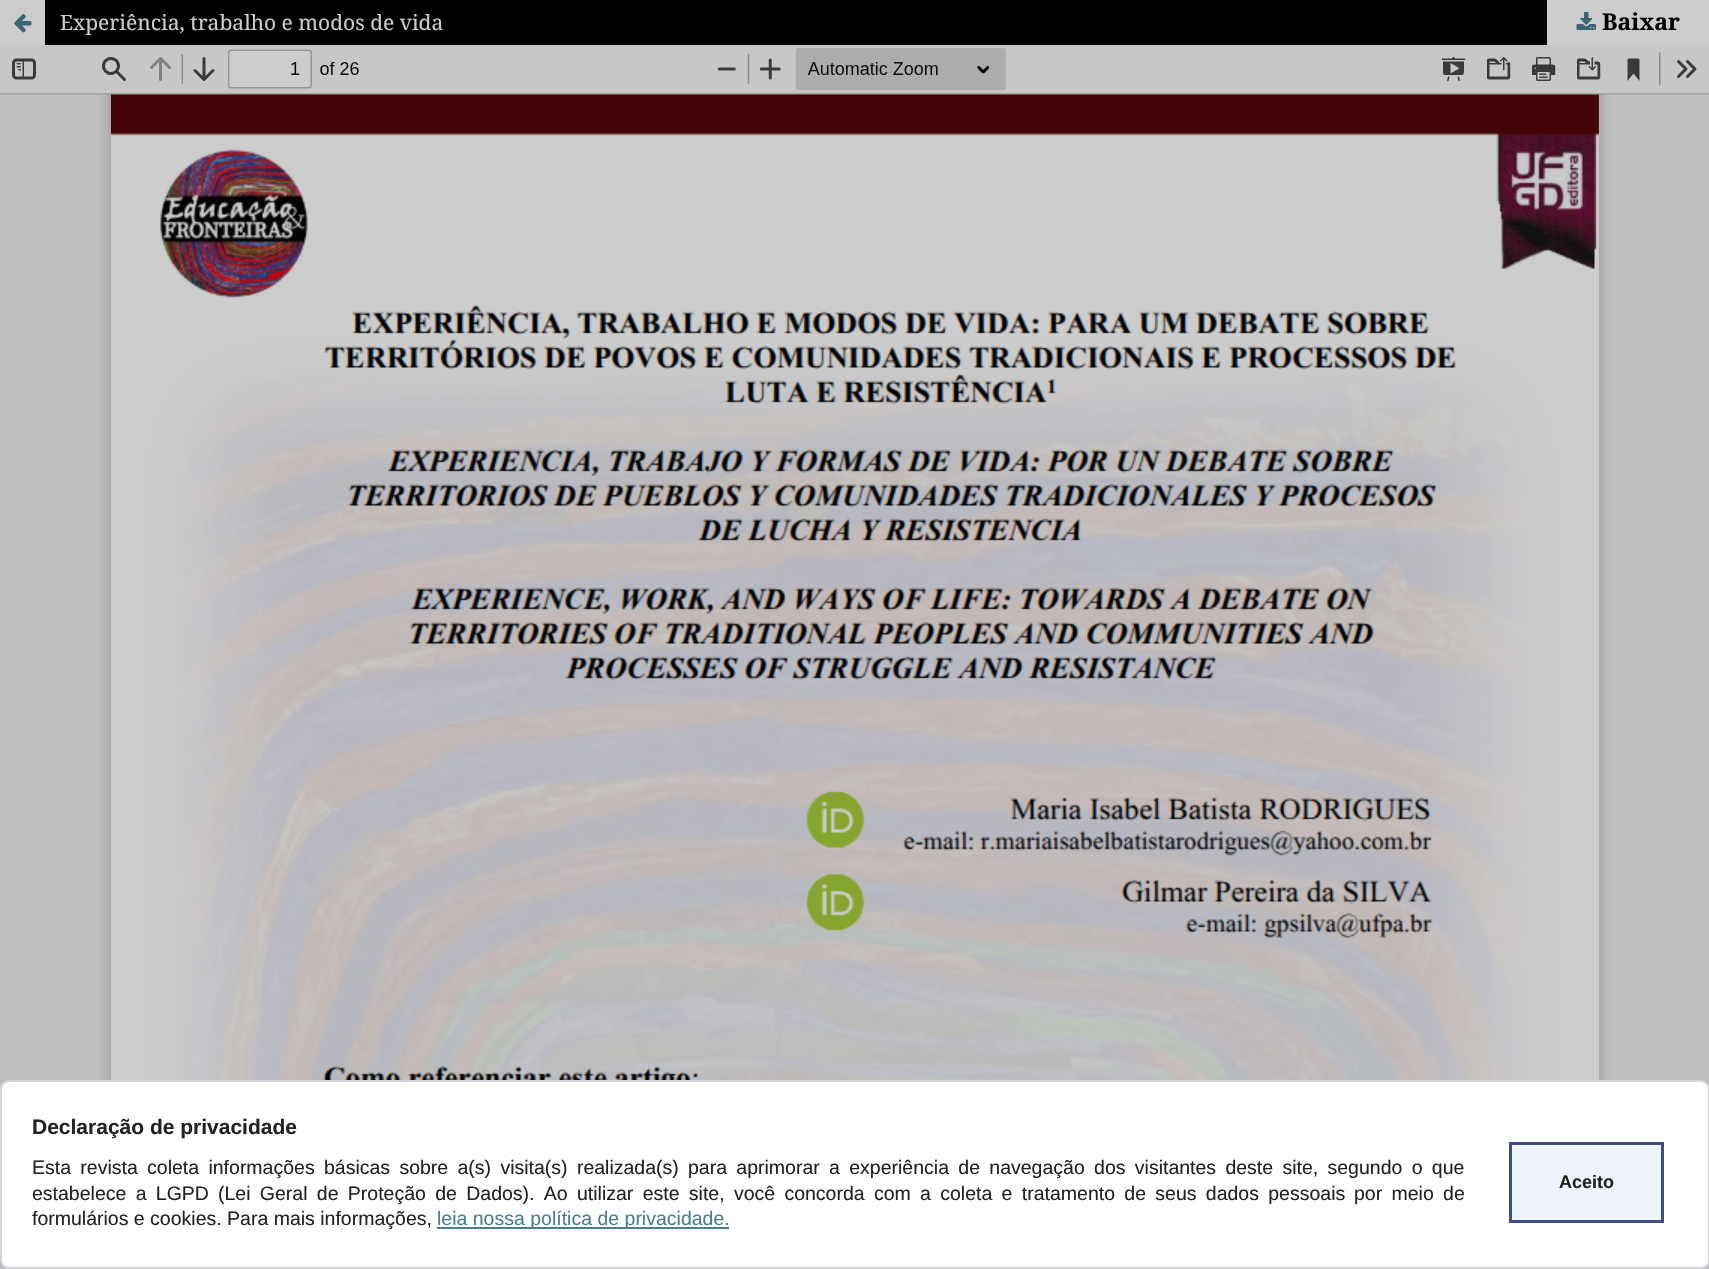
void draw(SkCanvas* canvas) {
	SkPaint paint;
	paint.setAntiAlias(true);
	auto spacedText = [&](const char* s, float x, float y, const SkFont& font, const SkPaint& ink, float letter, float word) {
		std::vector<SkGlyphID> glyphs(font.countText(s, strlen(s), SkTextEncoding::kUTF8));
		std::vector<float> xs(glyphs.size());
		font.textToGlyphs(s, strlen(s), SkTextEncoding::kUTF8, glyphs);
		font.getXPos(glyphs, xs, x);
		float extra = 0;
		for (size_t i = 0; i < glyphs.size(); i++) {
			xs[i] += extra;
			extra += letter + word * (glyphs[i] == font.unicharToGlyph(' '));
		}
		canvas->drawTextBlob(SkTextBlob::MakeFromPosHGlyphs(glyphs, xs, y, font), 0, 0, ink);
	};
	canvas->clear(0xffffffff);
	paint.setColor(0xff000000);
	canvas->drawRect(SkRect::MakeXYWH(45, 0, 1502, 45), paint);
	paint.setColor(0xffcccccc);
	canvas->drawRect(SkRect::MakeXYWH(0, 0, 45, 45), paint);
	canvas->drawImageRect(SkImages::DeferredFromEncodedData(SkData::MakeFromFileName("img1.png")), SkRect::MakeXYWH(14, 14, 18, 19), SkSamplingOptions());
	SkFont f1(fontMgr->matchFamilyStyle("Noto Serif", SkFontStyle::Normal()), 21);
	f1.setSubpixel(true);
	canvas->drawString("Experiência, trabalho e modos de vida", 60, 30, f1, paint);
	canvas->drawRect(SkRect::MakeXYWH(1547, 0, 162, 45), paint);
	canvas->drawImageRect(SkImages::DeferredFromEncodedData(SkData::MakeFromFileName("img2.png")), SkRect::MakeXYWH(1576, 12, 20, 18), SkSamplingOptions());
	SkFont f2(fontMgr->matchFamilyStyle("Noto Serif", SkFontStyle::Bold()), 23);
	f2.setSubpixel(true);
	paint.setColor(0xff000000);
	canvas->drawString("Baixar", 1602, 30, f2, paint);
	canvas->drawImageRect(SkImages::DeferredFromEncodedData(SkData::MakeFromFileName("img3.png")), SkRect::MakeXYWH(0, 45, 1709, 1224), SkSamplingOptions());
	paint.setColor(0xffffffff);
	canvas->drawRoundRect(SkRect::MakeXYWH(1, 1081, 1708, 187), 8, 8, paint);
	paint.setStroke(true);
	paint.setStrokeWidth(2);
	paint.setColor(0xffd2d2dc);
	canvas->drawRoundRect(SkRect::MakeXYWH(1, 1081, 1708, 187), 8, 8, paint);
	SkFont f3(fontMgr->matchFamilyStyle("Liberation Sans", SkFontStyle::Bold()), 21);
	f3.setSubpixel(true);
	paint.setStroke(false);
	paint.setColor(0xff222222);
	canvas->drawString("Declaração de privacidade", 32, 1134, f3, paint);
	SkFont f4(fontMgr->matchFamilyStyle("Liberation Sans", SkFontStyle::Normal()), 19.5);
	f4.setSubpixel(true);
	spacedText("Esta revista coleta informações básicas sobre a(s) visita(s) realizada(s)", 32, 1174, f4, paint, 0, 3.9);
	spacedText("para aprimorar a experiência de navegação dos visitantes deste site, segundo o que", 688, 1174, f4, paint, 0, 3.9);
	spacedText("estabelece a LGPD", 32, 1200, f4, paint, 0, 3.9);
	spacedText("(Lei Geral de Proteção de Dados). Ao utilizar este site, você concorda com a coleta e tratamento de seus dados pessoais", 218, 1200, f4, paint, 0, 3.9);
	spacedText("por meio de", 1354, 1200, f4, paint, 0, 3.9);
	canvas->drawString("formulários e cookies. Para mais informações,", 32, 1225, f4, paint);
	paint.setColor(0xff4b7d92);
	canvas->drawRect(SkRect::MakeXYWH(437, 1227, 292, 2), paint);
	canvas->drawString("leia nossa política de privacidade.", 437, 1225, f4, paint);
	paint.setColor(0xffeff3fa);
	canvas->drawRect(SkRect::MakeXYWH(1510.5, 1143.5, 152, 78), paint);
	paint.setStroke(true);
	paint.setStrokeWidth(3);
	paint.setColor(0xff404e82);
	canvas->drawRect(SkRect::MakeXYWH(1510.5, 1143.5, 152, 78), paint);
	SkFont f5(fontMgr->matchFamilyStyle("Liberation Sans", SkFontStyle::Bold()), 18);
	f5.setSubpixel(true);
	paint.setStroke(false);
	paint.setColor(0xff222222);
	canvas->drawString("Aceito", 1559, 1188, f5, paint);
}
